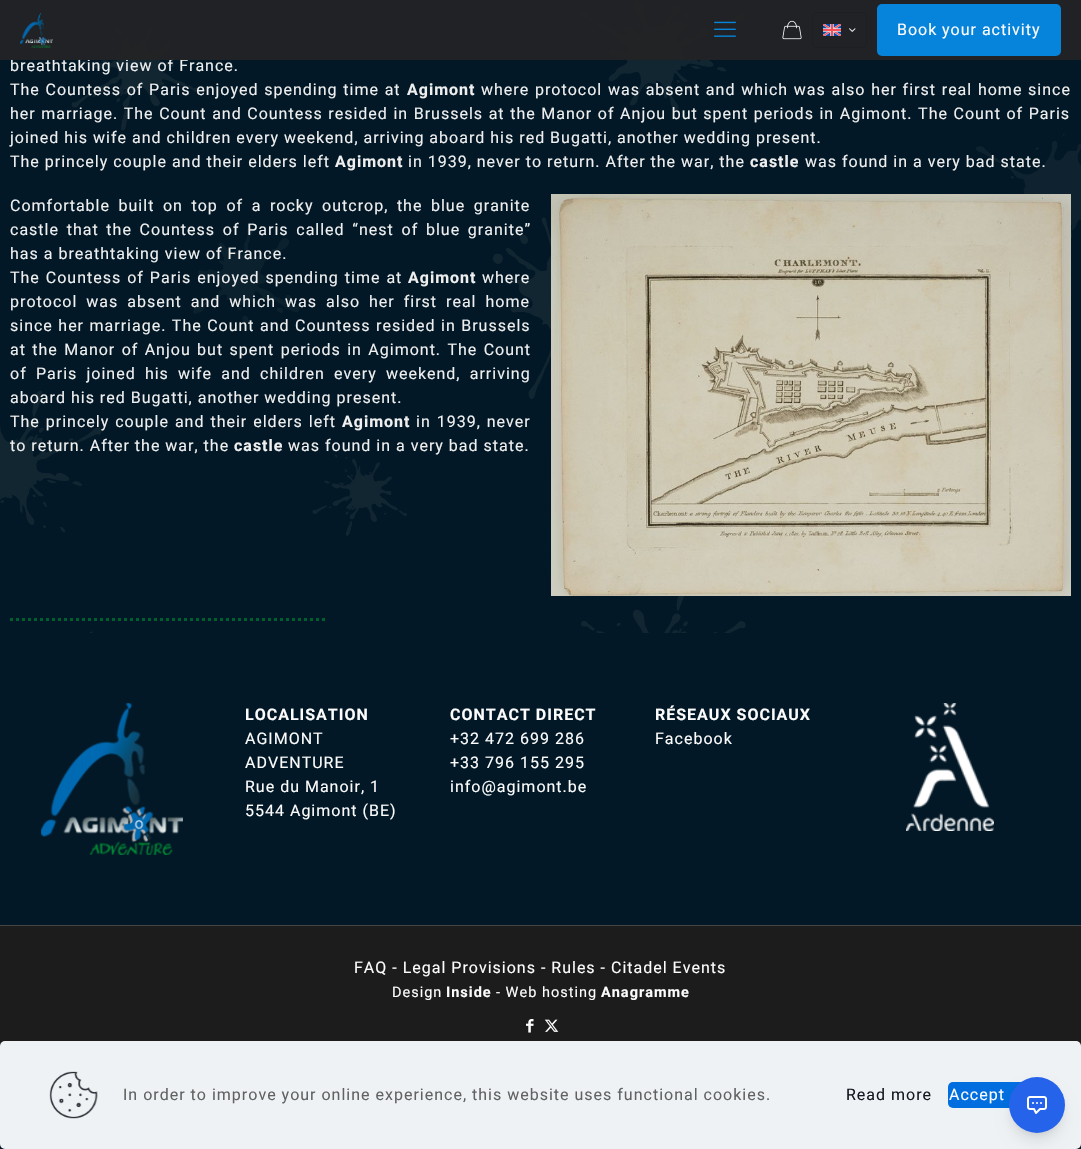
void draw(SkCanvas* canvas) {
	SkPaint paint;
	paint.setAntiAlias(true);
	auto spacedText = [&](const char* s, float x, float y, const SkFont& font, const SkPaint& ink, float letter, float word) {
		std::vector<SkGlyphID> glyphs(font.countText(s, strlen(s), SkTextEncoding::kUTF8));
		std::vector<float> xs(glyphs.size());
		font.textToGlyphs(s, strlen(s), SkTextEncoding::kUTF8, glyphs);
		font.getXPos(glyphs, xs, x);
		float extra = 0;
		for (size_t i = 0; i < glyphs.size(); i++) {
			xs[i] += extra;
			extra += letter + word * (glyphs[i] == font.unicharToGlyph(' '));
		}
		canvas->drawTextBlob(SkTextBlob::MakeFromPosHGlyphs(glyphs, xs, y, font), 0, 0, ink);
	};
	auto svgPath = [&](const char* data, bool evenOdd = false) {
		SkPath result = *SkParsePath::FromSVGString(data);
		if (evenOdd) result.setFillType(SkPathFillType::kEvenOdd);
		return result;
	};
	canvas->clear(0xff021826);
	canvas->drawImageRect(SkImages::DeferredFromEncodedData(SkData::MakeFromFileName("img6.png")), SkRect::MakeXYWH(0, 0, 1081, 633), SkSamplingOptions());
	SkFont f1(fontMgr->matchFamilyStyle("Roboto", SkFontStyle::Normal()), 16);
	f1.setSubpixel(true);
	paint.setColor(0xffefefef);
	spacedText("breathtaking view of France.", 10, 71, f1, paint, 1, 0);
	paint.setColor(0xf7212224);
	canvas->drawRect(SkRect::MakeXYWH(0, 0, 1081, 60), paint);
	canvas->drawImageRect(SkImages::DeferredFromEncodedData(SkData::MakeFromFileName("img1.png")), SkRect::MakeXYWH(20, 13, 33, 35), SkSamplingOptions());
	canvas->drawImageRect(SkImages::DeferredFromEncodedData(SkData::MakeFromFileName("img2.png")), SkRect::MakeXYWH(714, 21, 22, 16), SkSamplingOptions());
	canvas->drawImageRect(SkImages::DeferredFromEncodedData(SkData::MakeFromFileName("img3.png")), SkRect::MakeXYWH(782, 20, 20, 20), SkSamplingOptions());
	paint.setStroke(true);
	paint.setStrokeWidth(1);
	paint.setColor(0x1a000000);
	canvas->drawRoundRect(SkRect::MakeXYWH(812.5, 12.5, 54, 35), 4.5, 4.5, paint);
	canvas->drawImageRect(SkImages::DeferredFromEncodedData(SkData::MakeFromFileName("img4.png")), SkRect::MakeXYWH(823, 24, 18, 12), SkSamplingOptions());
	canvas->drawImageRect(SkImages::DeferredFromEncodedData(SkData::MakeFromFileName("img5.png")), SkRect::MakeXYWH(849, 28, 7, 4), SkSamplingOptions());
	paint.setStroke(false);
	paint.setColor(0xf70485e0);
	canvas->drawRoundRect(SkRect::MakeXYWH(877, 4, 184, 52), 5, 5, paint);
	paint.setColor(0xfffcfcfc);
	spacedText("Book", 897, 35, f1, paint, 1, 0);
	spacedText("your activity", 942, 35, f1, paint, 1, 0);
	paint.setColor(0xffefefef);
	spacedText("The Countess of Paris enjoyed spending time at", 10, 95, f1, paint, 1, 0.75);
	SkFont f2(fontMgr->matchFamilyStyle("Roboto", SkFontStyle::Bold()), 16);
	f2.setSubpixel(true);
	spacedText("Agimont", 407, 95, f2, paint, 1, 0);
	spacedText("where protocol was absent and which was also her first real home since", 481, 95, f1, paint, 1, 0.75);
	spacedText("her marriage. The Count and Countess resided in Brussels at the Manor of Anjou but spent periods in Agimont. The Count of Paris", 10, 119, f1, paint, 1, 0.6);
	spacedText("joined his wife and children every weekend, arriving aboard his red Bugatti, another wedding present.", 10, 143, f1, paint, 1, 0);
	spacedText("The princely couple and their elders left", 10, 167, f1, paint, 1, 0);
	spacedText("Agimont", 335, 167, f2, paint, 1, 0);
	spacedText("in 1939, never to return. After the war, the", 408, 167, f1, paint, 1, 0);
	spacedText("castle", 750, 167, f2, paint, 1, 0);
	spacedText("was found in a very bad state.", 805, 167, f1, paint, 1, 0);
	spacedText("Comfortable built on top of a rocky outcrop, the blue granite", 10, 211, f1, paint, 1, 3.6);
	spacedText("castle that the Countess of Paris called “nest of blue granite”", 10, 235, f1, paint, 1, 2.75);
	spacedText("has a breathtaking view of France.", 10, 259, f1, paint, 1, 0);
	spacedText("The Countess of Paris enjoyed spending time at", 10, 283, f1, paint, 1, 1);
	spacedText("Agimont", 408, 283, f2, paint, 1, 0);
	spacedText("where", 482, 283, f1, paint, 1, 0);
	spacedText("protocol was absent and which was also her first real home", 10, 307, f1, paint, 1, 4);
	spacedText("since her marriage. The Count and Countess resided in Brussels", 10, 331, f1, paint, 1, 0.5);
	spacedText("at the Manor of Anjou but spent periods in Agimont. The Count", 10, 355, f1, paint, 1, 1.4);
	spacedText("of Paris joined his wife and children every weekend, arriving", 10, 379, f1, paint, 1, 4.25);
	spacedText("aboard his red Bugatti, another wedding present.", 10, 403, f1, paint, 1, 0);
	spacedText("The princely couple and their elders left", 10, 427, f1, paint, 1, 1);
	spacedText("Agimont", 342, 427, f2, paint, 1, 0);
	spacedText("in 1939, never", 416, 427, f1, paint, 1, 1);
	spacedText("to return. After the war, the", 10, 451, f1, paint, 1, 0);
	spacedText("castle", 234, 451, f2, paint, 1, 0);
	spacedText("was found in a very bad state.", 288, 451, f1, paint, 1, 0);
	canvas->drawImageRect(SkImages::DeferredFromEncodedData(SkData::MakeFromFileName("img7.png")), SkRect::MakeXYWH(551, 194, 520, 402), SkSamplingOptions());
	paint.setStroke(true);
	paint.setStrokeWidth(3);
	paint.setColor(0xff005f2f);
	paint.setPathEffect(SkDashPathEffect::Make({{3, 3}}, 0));
	canvas->drawPath(svgPath("M10 619.5H328"), paint);
	paint.setPathEffect(nullptr);
	canvas->drawImageRect(SkImages::DeferredFromEncodedData(SkData::MakeFromFileName("img8.png")), SkRect::MakeXYWH(41, 703, 142, 152), SkSamplingOptions());
	paint.setStroke(false);
	paint.setColor(0xfffcfcfc);
	spacedText("LOCALISATION", 245, 720, f2, paint, 1, 0);
	spacedText("AGIMONT", 245, 744, f1, paint, 1, 0);
	spacedText("ADVENTURE", 245, 768, f1, paint, 1, 0);
	spacedText("Rue du Manoir, 1", 245, 792, f1, paint, 1, 0);
	spacedText("5544 Agimont (BE)", 245, 816, f1, paint, 1, 0);
	spacedText("CONTACT DIRECT", 450, 720, f2, paint, 1, 0);
	spacedText("+32 472 699 286", 450, 744, f1, paint, 1, 0);
	spacedText("+33 796 155 295", 450, 768, f1, paint, 1, 0);
	spacedText("info@agimont.be", 450, 792, f1, paint, 1, 0);
	spacedText("RÉSEAUX SOCIAUX", 655, 720, f2, paint, 1, 0);
	spacedText("Facebook", 655, 744, f1, paint, 1, 0);
	canvas->drawImageRect(SkImages::DeferredFromEncodedData(SkData::MakeFromFileName("img9.png")), SkRect::MakeXYWH(906, 703, 88, 128), SkSamplingOptions());
	paint.setColor(0xff1c1c1c);
	canvas->drawRect(SkRect::MakeXYWH(0, 926, 1081, 120), paint);
	paint.setColor(0xff444444);
	canvas->drawRect(SkRect::MakeXYWH(0, 925, 1081, 1), paint);
	paint.setColor(0xfffcfcfc);
	spacedText("FAQ - Legal Provisions - Rules - Citadel Events", 354, 973, f1, paint, 1, 0);
	SkFont f3(fontMgr->matchFamilyStyle("Roboto", SkFontStyle::Normal()), 14.5);
	f3.setSubpixel(true);
	spacedText("Design", 392, 997, f3, paint, 1, 0);
	SkFont f4(fontMgr->matchFamilyStyle("Roboto", SkFontStyle::Bold()), 14.5);
	f4.setSubpixel(true);
	spacedText("Inside", 446, 997, f4, paint, 1, 0);
	spacedText("- Web hosting", 496, 997, f3, paint, 1, 0);
	spacedText("Anagramme", 601, 997, f4, paint, 1, 0);
	canvas->drawImageRect(SkImages::DeferredFromEncodedData(SkData::MakeFromFileName("img10.png")), SkRect::MakeXYWH(526, 1019, 8, 14), SkSamplingOptions());
	canvas->drawImageRect(SkImages::DeferredFromEncodedData(SkData::MakeFromFileName("img11.png")), SkRect::MakeXYWH(544, 1019, 15, 13), SkSamplingOptions());
	paint.setColor(0xffeef2f5);
	canvas->drawRoundRect(SkRect::MakeXYWH(0, 1041, 1081, 108), 5, 5, paint);
	canvas->drawImageRect(SkImages::DeferredFromEncodedData(SkData::MakeFromFileName("img12.png")), SkRect::MakeXYWH(49, 1071, 49, 48), SkSamplingOptions());
	paint.setColor(0xff626262);
	spacedText("In order to improve your online experience, this website uses functional cookies.", 123, 1100, f1, paint, 1, 0);
	paint.setColor(0xff161922);
	spacedText("Read more", 846, 1100, f1, paint, 1, 0);
	paint.setColor(0xff006edf);
	canvas->drawRoundRect(SkRect::MakeXYWH(948, 1082, 84, 26), 5, 5, paint);
	paint.setColor(0xfffcfcfc);
	spacedText("Accept", 949, 1100, f1, paint, 1, 0);
	paint.setColor(0x1a000000);
	paint.setMaskFilter(SkMaskFilter::MakeBlur(kNormal_SkBlurStyle, 3));
	canvas->drawRoundRect(SkRect::MakeXYWH(1013, 1085, 48, 48), 24, 24, paint);
	paint.setMaskFilter(nullptr);
	paint.setMaskFilter(SkMaskFilter::MakeBlur(kNormal_SkBlurStyle, 7.5));
	canvas->drawRoundRect(SkRect::MakeXYWH(1012, 1090, 50, 50), 25, 25, paint);
	paint.setMaskFilter(nullptr);
	paint.setColor(0xff2563eb);
	canvas->drawCircle(1037, 1105, 28, paint);
	canvas->drawImageRect(SkImages::DeferredFromEncodedData(SkData::MakeFromFileName("img13.png")), SkRect::MakeXYWH(1027, 1096, 20, 18), SkSamplingOptions());
}
